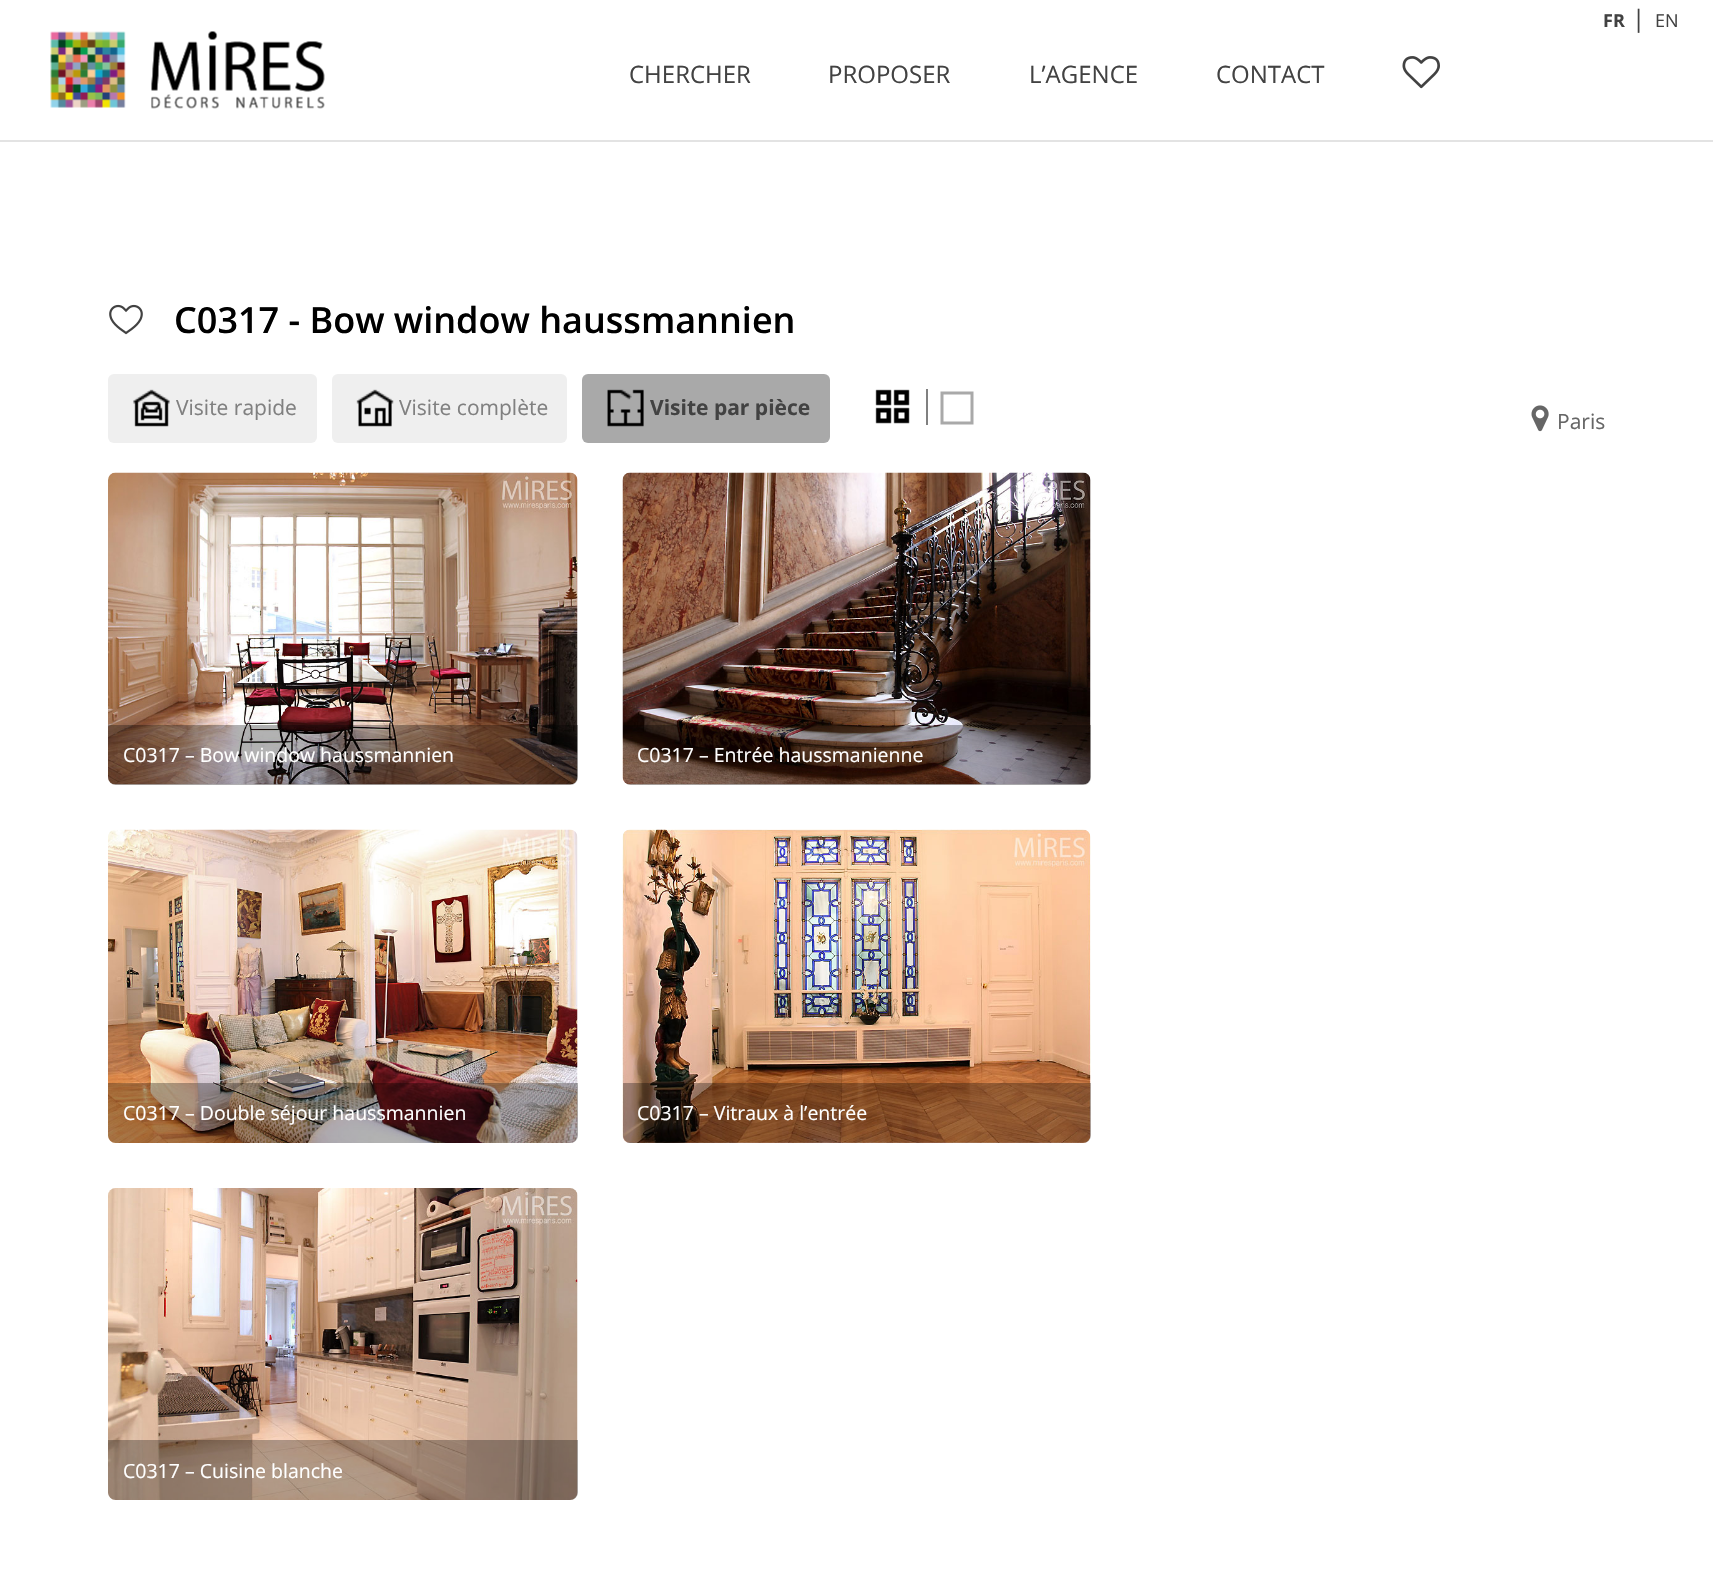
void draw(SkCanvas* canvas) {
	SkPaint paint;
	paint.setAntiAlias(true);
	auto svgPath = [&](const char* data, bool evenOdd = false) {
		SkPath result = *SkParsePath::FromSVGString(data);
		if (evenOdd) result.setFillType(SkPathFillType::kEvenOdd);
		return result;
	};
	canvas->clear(0xffffffff);
	paint.setColor(0xffe3e3e3);
	canvas->drawRect(SkRect::MakeXYWH(0, 140, 1713, 2), paint);
	canvas->drawImageRect(SkImages::DeferredFromEncodedData(SkData::MakeFromFileName("img1.png")), SkRect::MakeXYWH(50, 31, 275, 78), SkSamplingOptions());
	SkFont f1(fontMgr->matchFamilyStyle("Open Sans", SkFontStyle::Bold()), 18);
	f1.setSubpixel(true);
	paint.setColor(0xff424242);
	canvas->drawString("FR", 1603, 27, f1, paint);
	SkFont f2(fontMgr->matchFamilyStyle("Open Sans", SkFontStyle::Normal()), 24);
	f2.setSubpixel(true);
	canvas->drawString("|", 1632, 27, f2, paint);
	SkFont f3(fontMgr->matchFamilyStyle("Open Sans", SkFontStyle::Normal()), 18);
	f3.setSubpixel(true);
	canvas->drawString("EN", 1655, 27, f3, paint);
	canvas->drawString("CHERCHER", 629, 83, f2, paint);
	canvas->drawString("PROPOSER", 828, 83, f2, paint);
	canvas->drawString("L’AGENCE", 1029, 83, f2, paint);
	canvas->drawString("CONTACT", 1216, 83, f2, paint);
	canvas->drawImageRect(SkImages::DeferredFromEncodedData(SkData::MakeFromFileName("img2.png")), SkRect::MakeXYWH(1402, 56, 38, 33), SkSamplingOptions());
	canvas->drawImageRect(SkImages::DeferredFromEncodedData(SkData::MakeFromFileName("img3.png")), SkRect::MakeXYWH(109, 304, 34, 31), SkSamplingOptions());
	SkFont f4(fontMgr->matchFamilyStyle("Open Sans", SkFontStyle(600, SkFontStyle::kNormal_Width, SkFontStyle::kUpright_Slant)), 36);
	f4.setSubpixel(true);
	paint.setColor(0xff000000);
	canvas->drawString("C0317 - Bow window haussmannien", 174, 333, f4, paint);
	paint.setColor(0xffefefef);
	canvas->drawRoundRect(SkRect::MakeXYWH(108, 374, 209, 69), 6, 6, paint);
	canvas->drawImageRect(SkImages::DeferredFromEncodedData(SkData::MakeFromFileName("img4.png")), SkRect::MakeXYWH(133, 389, 37, 38), SkSamplingOptions());
	SkFont f5(fontMgr->matchFamilyStyle("Open Sans", SkFontStyle::Normal()), 21);
	f5.setSubpixel(true);
	paint.setColor(0xff808080);
	canvas->drawString("Visite rapide", 176, 415, f5, paint);
	paint.setColor(0xffefefef);
	canvas->drawRoundRect(SkRect::MakeXYWH(332, 374, 235, 69), 6, 6, paint);
	canvas->drawImageRect(SkImages::DeferredFromEncodedData(SkData::MakeFromFileName("img5.png")), SkRect::MakeXYWH(356, 389, 38, 38), SkSamplingOptions());
	paint.setColor(0xff808080);
	canvas->drawString("Visite complète", 399, 415, f5, paint);
	paint.setColor(0xffa9a9a9);
	canvas->drawRoundRect(SkRect::MakeXYWH(582, 374, 248, 69), 6, 6, paint);
	canvas->drawImageRect(SkImages::DeferredFromEncodedData(SkData::MakeFromFileName("img6.png")), SkRect::MakeXYWH(607, 389, 37, 38), SkSamplingOptions());
	SkFont f6(fontMgr->matchFamilyStyle("Open Sans", SkFontStyle::Bold()), 21);
	f6.setSubpixel(true);
	paint.setColor(0xff424242);
	canvas->drawString("Visite par pièce", 650, 415, f6, paint);
	canvas->drawImageRect(SkImages::DeferredFromEncodedData(SkData::MakeFromFileName("img7.png")), SkRect::MakeXYWH(875, 389, 35, 35), SkSamplingOptions());
	paint.setColor(0xff808080);
	canvas->drawRect(SkRect::MakeXYWH(926, 389, 2, 36), paint);
	canvas->drawImageRect(SkImages::DeferredFromEncodedData(SkData::MakeFromFileName("img8.png")), SkRect::MakeXYWH(940, 391, 34, 34), SkSamplingOptions());
	canvas->drawImageRect(SkImages::DeferredFromEncodedData(SkData::MakeFromFileName("img9.png")), SkRect::MakeXYWH(1531, 405, 18, 27), SkSamplingOptions());
	paint.setColor(0xff666666);
	canvas->drawString("Paris", 1557, 429, f5, paint);
	canvas->drawImageRect(SkImages::DeferredFromEncodedData(SkData::MakeFromFileName("img10.png")), SkRect::MakeXYWH(108, 472, 470, 313), SkSamplingOptions());
	paint.setColor(0x4d000000);
	canvas->drawPath(svgPath("M108 725H578V777C578 781.5 574.5 785 570 785H116C111.5 785 108 781.5 108 777Z"), paint);
	SkFont f7(fontMgr->matchFamilyStyle("Open Sans", SkFontStyle::Normal()), 19.5);
	f7.setSubpixel(true);
	paint.setColor(0xffffffff);
	canvas->drawString("C0317 – Bow window haussmannien", 123, 762, f7, paint);
	canvas->drawImageRect(SkImages::DeferredFromEncodedData(SkData::MakeFromFileName("img11.png")), SkRect::MakeXYWH(622, 472, 469, 313), SkSamplingOptions());
	paint.setColor(0x4d000000);
	canvas->drawPath(svgPath("M623 725H1091V777C1091 781.5 1087.5 785 1083 785H631C626.5 785 623 781.5 623 777Z"), paint);
	paint.setColor(0xffffffff);
	canvas->drawString("C0317 – Entrée haussmanienne", 637, 762, f7, paint);
	canvas->drawImageRect(SkImages::DeferredFromEncodedData(SkData::MakeFromFileName("img12.png")), SkRect::MakeXYWH(108, 829, 470, 314), SkSamplingOptions());
	paint.setColor(0x4d000000);
	canvas->drawPath(svgPath("M108 1083H578V1135C578 1139.5 574.5 1143 570 1143H116C111.5 1143 108 1139.5 108 1135Z"), paint);
	paint.setColor(0xffffffff);
	canvas->drawString("C0317 – Double séjour haussmannien", 123, 1120, f7, paint);
	canvas->drawImageRect(SkImages::DeferredFromEncodedData(SkData::MakeFromFileName("img13.png")), SkRect::MakeXYWH(622, 829, 469, 314), SkSamplingOptions());
	paint.setColor(0x4d000000);
	canvas->drawPath(svgPath("M623 1083H1091V1135C1091 1139.5 1087.5 1143 1083 1143H631C626.5 1143 623 1139.5 623 1135Z"), paint);
	paint.setColor(0xffffffff);
	canvas->drawString("C0317 – Vitraux à l’entrée", 637, 1120, f7, paint);
	canvas->drawImageRect(SkImages::DeferredFromEncodedData(SkData::MakeFromFileName("img14.png")), SkRect::MakeXYWH(108, 1188, 470, 312), SkSamplingOptions());
	paint.setColor(0x4d000000);
	canvas->drawPath(svgPath("M108 1440H578V1492C578 1496.5 574.5 1500 570 1500H116C111.5 1500 108 1496.5 108 1492Z"), paint);
	paint.setColor(0xffffffff);
	canvas->drawString("C0317 – Cuisine blanche", 123, 1478, f7, paint);
}
